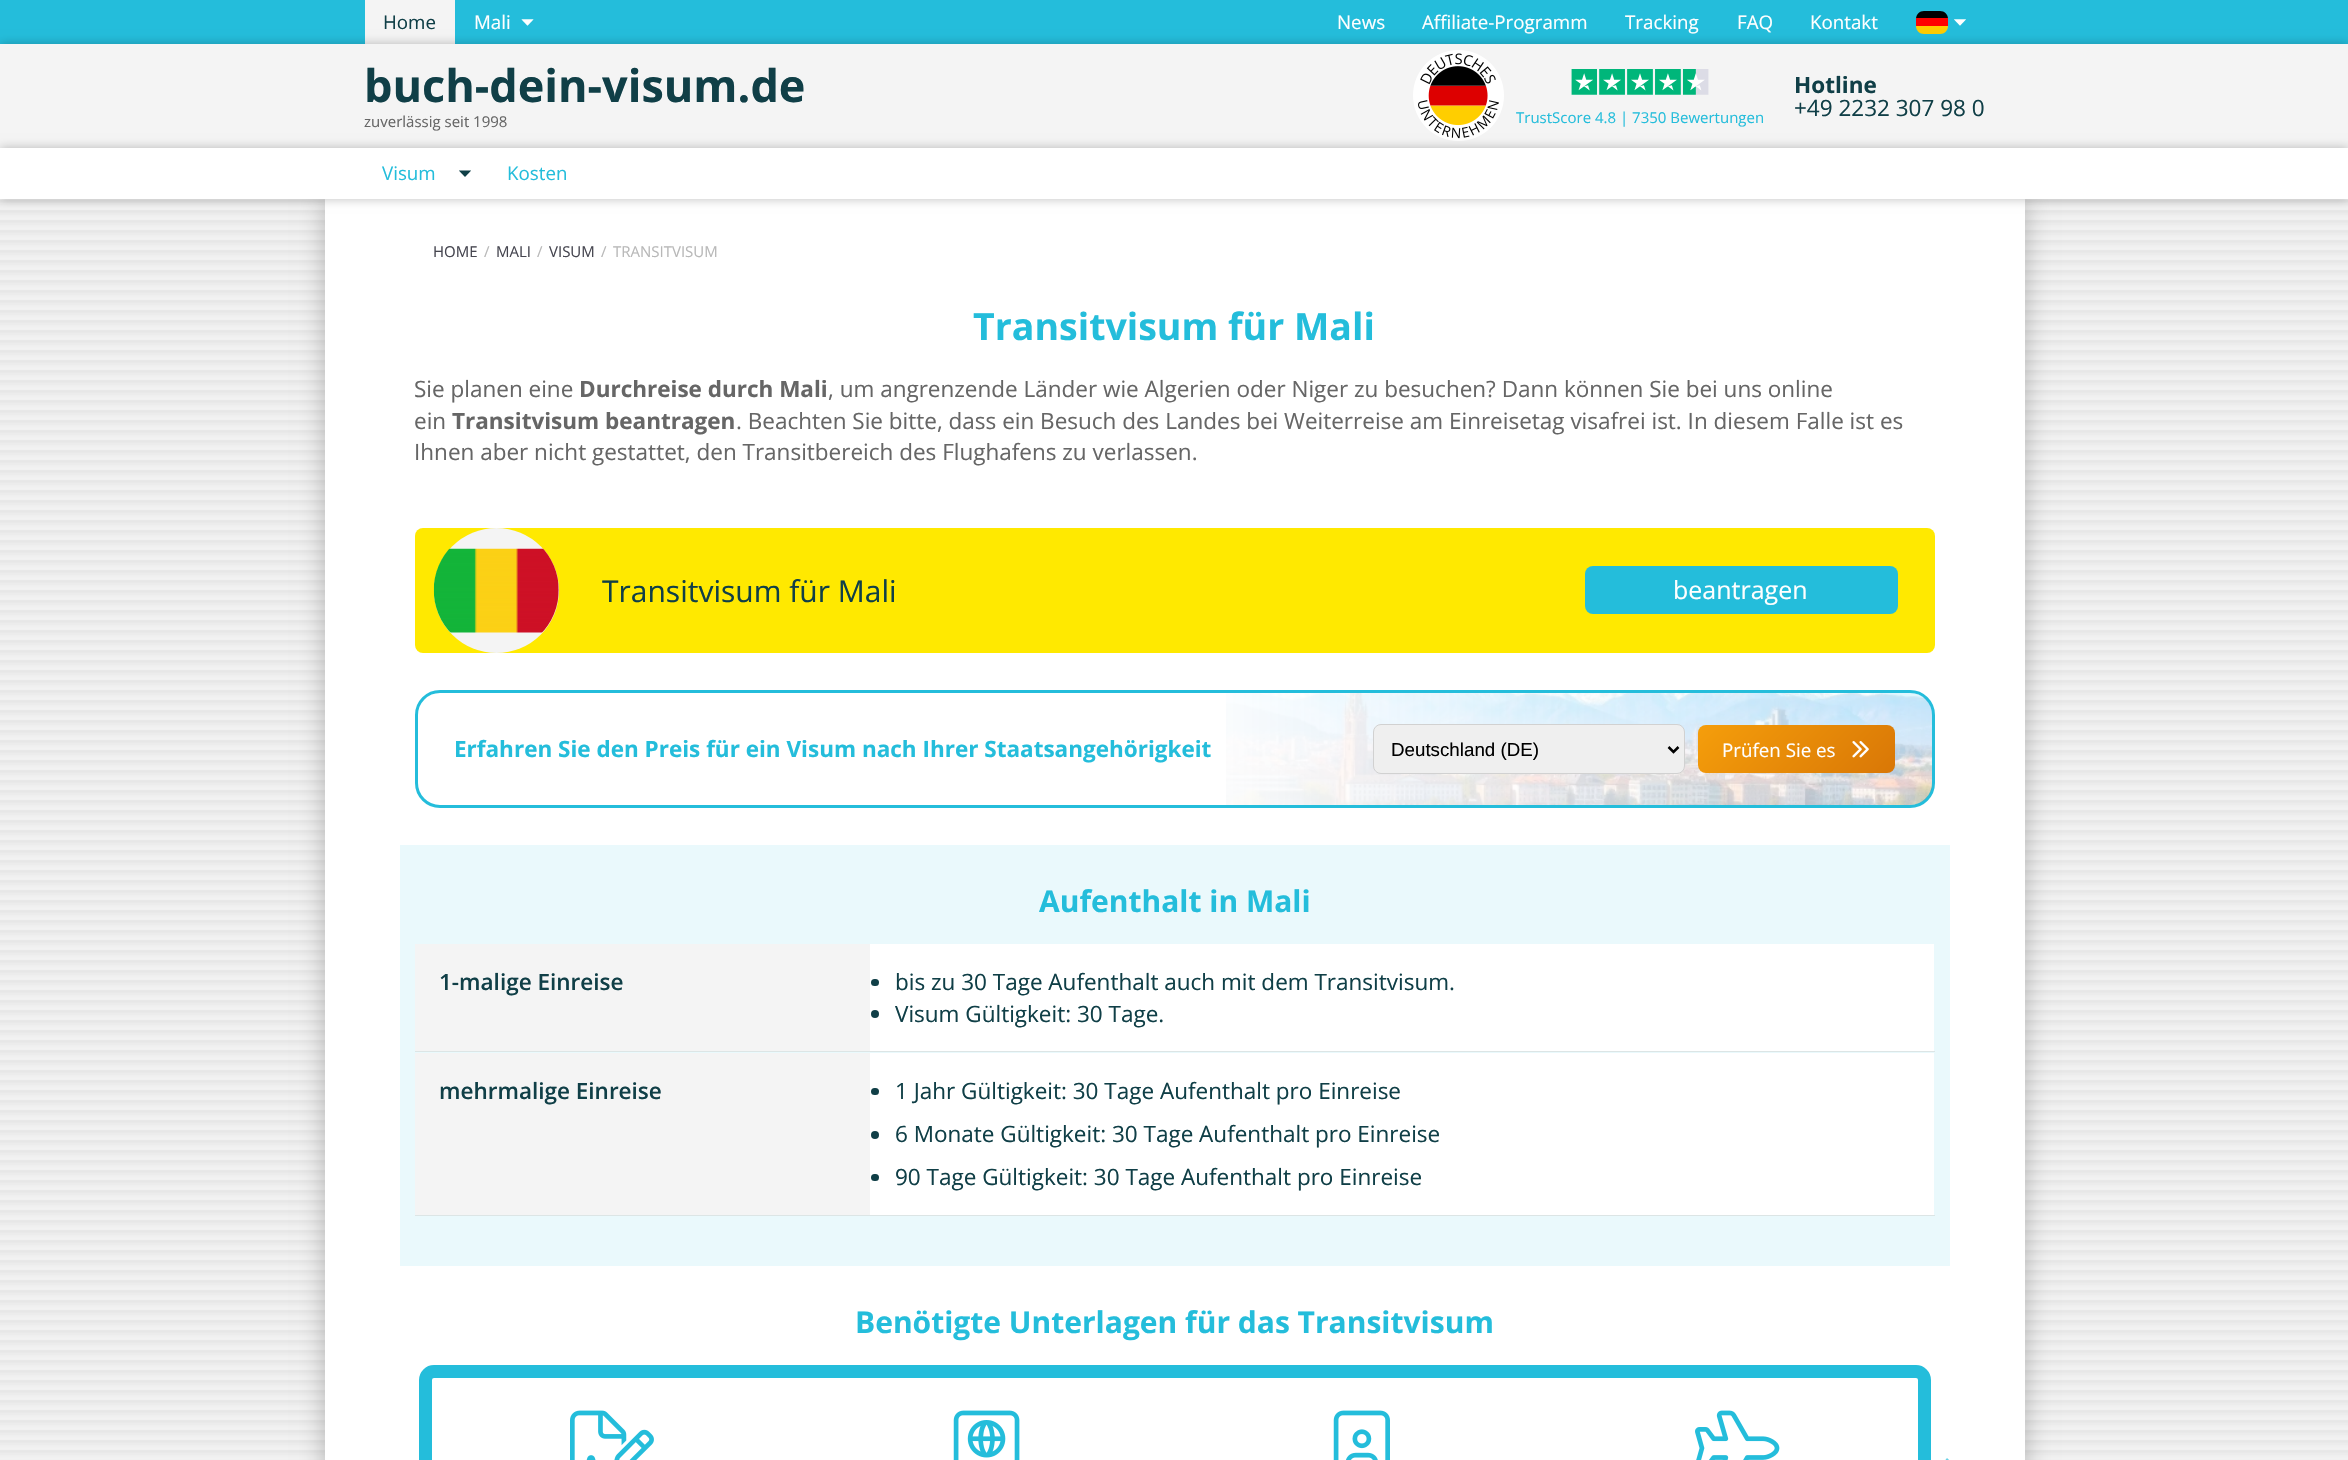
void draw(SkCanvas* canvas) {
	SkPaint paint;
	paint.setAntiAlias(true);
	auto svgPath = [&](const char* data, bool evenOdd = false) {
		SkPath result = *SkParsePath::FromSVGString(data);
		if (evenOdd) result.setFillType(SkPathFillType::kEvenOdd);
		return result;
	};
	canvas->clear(0xffffffff);
	canvas->drawImageRect(SkImages::DeferredFromEncodedData(SkData::MakeFromFileName("img1.png")), SkRect::MakeXYWH(0, 199, 2348, 1261), SkSamplingOptions());
	paint.setColor(0xff24bddb);
	canvas->drawRect(SkRect::MakeXYWH(0, 0, 2348, 44), paint);
	paint.setColor(0xfff4f4f4);
	canvas->drawRect(SkRect::MakeXYWH(365, 0, 90, 44), paint);
	SkFont f1(fontMgr->matchFamilyStyle("Open Sans", SkFontStyle::Normal()), 18.75);
	f1.setSubpixel(true);
	paint.setColor(0xff103f47);
	canvas->drawString("Home", 383, 29, f1, paint);
	paint.setColor(0xffffffff);
	canvas->drawString("Mali", 474, 29, f1, paint);
	canvas->drawImageRect(SkImages::DeferredFromEncodedData(SkData::MakeFromFileName("img2.png")), SkRect::MakeXYWH(521, 19, 13, 7), SkSamplingOptions());
	canvas->drawString("News", 1337, 29, f1, paint);
	canvas->drawString("Affiliate-Programm", 1422, 29, f1, paint);
	canvas->drawString("Tracking", 1625, 29, f1, paint);
	canvas->drawString("FAQ", 1737, 29, f1, paint);
	canvas->drawString("Kontakt", 1810, 29, f1, paint);
	paint.setColor(0xffffcc00);
	canvas->drawPath(svgPath("M1916 26H1948C1948 30.5 1944.5 34 1940 34H1924C1919.5 34 1916 30.5 1916 26Z"), paint);
	canvas->save();
	canvas->clipPath(svgPath("M1924 11H1940C1944.5 11 1948 14.5 1948 19V26C1948 30.5 1944.5 34 1940 34H1924C1919.5 34 1916 30.5 1916 26V19C1916 14.5 1919.5 11 1924 11Z"), true);
	paint.setColor(0xff000001);
	canvas->drawRect(SkRect::MakeXYWH(1916, 11, 32, 7), paint);
	canvas->restore();
	paint.setColor(0xffff0000);
	canvas->drawRect(SkRect::MakeXYWH(1916, 18, 32, 8), paint);
	canvas->drawImageRect(SkImages::DeferredFromEncodedData(SkData::MakeFromFileName("img3.png")), SkRect::MakeXYWH(1954, 19, 12, 7), SkSamplingOptions());
	paint.setColor(0x40000000);
	paint.setMaskFilter(SkMaskFilter::MakeBlur(kNormal_SkBlurStyle, 5));
	canvas->drawRect(SkRect::MakeXYWH(0, 44, 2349, 104), paint);
	paint.setMaskFilter(nullptr);
	paint.setColor(0xfff4f4f4);
	canvas->drawRect(SkRect::MakeXYWH(0, 44, 2348, 104), paint);
	SkFont f2(fontMgr->matchFamilyStyle("Open Sans", SkFontStyle::Bold()), 45);
	f2.setSubpixel(true);
	paint.setColor(0xff103f47);
	canvas->drawString("buch-dein-visum.de", 364, 102, f2, paint);
	SkFont f3(fontMgr->matchFamilyStyle("Open Sans", SkFontStyle::Normal()), 15);
	f3.setSubpixel(true);
	paint.setColor(0xff666666);
	canvas->drawString("zuverlässig seit 1998", 364, 127, f3, paint);
	SkFont f4(fontMgr->matchFamilyStyle("Open Sans", SkFontStyle::Bold()), 22.5);
	f4.setSubpixel(true);
	paint.setColor(0xff103f47);
	canvas->drawString("Hotline", 1794, 93, f4, paint);
	SkFont f5(fontMgr->matchFamilyStyle("Open Sans", SkFontStyle::Normal()), 22.5);
	f5.setSubpixel(true);
	canvas->drawString("+49 2232 307 98 0", 1794, 116, f5, paint);
	canvas->drawImageRect(SkImages::DeferredFromEncodedData(SkData::MakeFromFileName("img4.png")), SkRect::MakeXYWH(1413, 50, 91, 91), SkSamplingOptions());
	canvas->drawImageRect(SkImages::DeferredFromEncodedData(SkData::MakeFromFileName("img5.png")), SkRect::MakeXYWH(1571, 69, 138, 26), SkSamplingOptions());
	paint.setColor(0xff24bddb);
	canvas->drawString("TrustScore 4.8 | 7350 Bewertungen", 1516, 123, f3, paint);
	paint.setColor(0x40000000);
	paint.setMaskFilter(SkMaskFilter::MakeBlur(kNormal_SkBlurStyle, 12.5));
	canvas->drawRect(SkRect::MakeXYWH(325, 199, 1700, 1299), paint);
	paint.setMaskFilter(nullptr);
	paint.setColor(0xffffffff);
	canvas->drawRect(SkRect::MakeXYWH(325, 199, 1700, 1261), paint);
	paint.setColor(0x40000000);
	paint.setMaskFilter(SkMaskFilter::MakeBlur(kNormal_SkBlurStyle, 5));
	canvas->drawRect(SkRect::MakeXYWH(0, 148, 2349, 51), paint);
	paint.setMaskFilter(nullptr);
	paint.setColor(0xffffffff);
	canvas->drawRect(SkRect::MakeXYWH(0, 148, 2348, 51), paint);
	paint.setColor(0xff24bddb);
	canvas->drawString("Visum", 382, 180, f1, paint);
	canvas->drawImageRect(SkImages::DeferredFromEncodedData(SkData::MakeFromFileName("img6.png")), SkRect::MakeXYWH(459, 170, 12, 7), SkSamplingOptions());
	canvas->drawString("Kosten", 507, 180, f1, paint);
	paint.setColor(0xff464650);
	canvas->drawString("HOME", 433, 257, f3, paint);
	paint.setColor(0xffb8b8b8);
	canvas->drawString("/", 484, 257, f3, paint);
	paint.setColor(0xff464650);
	canvas->drawString("MALI", 496, 257, f3, paint);
	paint.setColor(0xffb8b8b8);
	canvas->drawString("/", 537, 257, f3, paint);
	paint.setColor(0xff464650);
	canvas->drawString("VISUM", 549, 257, f3, paint);
	paint.setColor(0xffb8b8b8);
	canvas->drawString("/", 601, 257, f3, paint);
	canvas->drawString("TRANSITVISUM", 613, 257, f3, paint);
	SkFont f6(fontMgr->matchFamilyStyle("Open Sans", SkFontStyle::Bold()), 37.5);
	f6.setSubpixel(true);
	paint.setColor(0xff24bddb);
	canvas->drawString("Transitvisum für Mali", 973, 340, f6, paint);
	paint.setColor(0xff666666);
	canvas->drawString("Sie planen eine", 414, 397, f5, paint);
	canvas->drawString("Durchreise durch Mali", 579, 397, f4, paint);
	canvas->drawString(", um angrenzende Länder wie Algerien oder Niger zu besuchen? Dann können Sie bei uns online", 828, 397, f5, paint);
	canvas->drawString("ein", 414, 429, f5, paint);
	canvas->drawString("Transitvisum beantragen", 452, 429, f4, paint);
	canvas->drawString(". Beachten Sie bitte, dass ein Besuch des Landes bei Weiterreise am Einreisetag visafrei ist. In diesem Falle ist es", 736, 429, f5, paint);
	canvas->drawString("Ihnen aber nicht gestattet, den Transitbereich des Flughafens zu verlassen.", 414, 460, f5, paint);
	paint.setColor(0xffffe900);
	canvas->drawRoundRect(SkRect::MakeXYWH(415, 528, 1520, 125), 8, 8, paint);
	paint.setColor(0xfff4f4f4);
	canvas->drawCircle(496.5, 590.5, 62.5, paint);
	canvas->drawImageRect(SkImages::DeferredFromEncodedData(SkData::MakeFromFileName("img7.png")), SkRect::MakeXYWH(433, 548, 126, 85), SkSamplingOptions());
	SkFont f7(fontMgr->matchFamilyStyle("Open Sans", SkFontStyle::Normal()), 30);
	f7.setSubpixel(true);
	paint.setColor(0xff103f47);
	canvas->drawString("Transitvisum für Mali", 602, 602, f7, paint);
	paint.setColor(0xff24bddb);
	canvas->drawRoundRect(SkRect::MakeXYWH(1585, 566, 313, 48), 8, 8, paint);
	SkFont f8(fontMgr->matchFamilyStyle("Open Sans", SkFontStyle::Normal()), 25);
	f8.setSubpixel(true);
	paint.setColor(0xffffffff);
	canvas->drawString("beantragen", 1673, 599, f8, paint);
	paint.setStroke(true);
	paint.setStrokeWidth(3);
	paint.setColor(0xff24bddb);
	canvas->drawRoundRect(SkRect::MakeXYWH(416.5, 691.5, 1517, 115), 23.5, 23.5, paint);
	canvas->drawImageRect(SkImages::DeferredFromEncodedData(SkData::MakeFromFileName("img8.png")), SkRect::MakeXYWH(1226, 693, 706, 112), SkSamplingOptions());
	paint.setStroke(false);
	canvas->drawString("Erfahren Sie den Preis für ein Visum nach Ihrer Staatsangehörigkeit", 454, 757, f4, paint);
	paint.setColor(0xffefefef);
	canvas->drawRoundRect(SkRect::MakeXYWH(1373.5, 724.5, 311, 49), 7.5, 7.5, paint);
	paint.setStroke(true);
	paint.setStrokeWidth(1);
	paint.setColor(0xffd1d1d1);
	canvas->drawRoundRect(SkRect::MakeXYWH(1373.5, 724.5, 311, 49), 7.5, 7.5, paint);
	paint.setStrokeWidth(2.5);
	paint.setColor(0xff000000);
	canvas->drawPath(svgPath("M1668.5 747L1673.5 752L1678.5 747"), paint);
	SkFont f9(fontMgr->matchFamilyStyle("Liberation Sans", SkFontStyle::Normal()), 18.75);
	f9.setSubpixel(true);
	paint.setStroke(false);
	canvas->drawString("Deutschland (DE)", 1391, 756, f9, paint);
	{
		const SkColor colors[] = {0xfff59e0b, 0xffd97706};
		const float stops[] = {0, 1};
		const SkPoint ends[] = {{1735, 688}, {1858, 810}};
		paint.setShader(SkGradientShader::MakeLinear(ends, colors, stops, 2, SkTileMode::kClamp));
		paint.setAlpha(255);
	}
	canvas->drawRoundRect(SkRect::MakeXYWH(1698, 725, 197, 48), 8, 8, paint);
	paint.setShader(nullptr);
	paint.setColor(0xffffffff);
	canvas->drawString("Prüfen Sie es", 1722, 757, f1, paint);
	canvas->drawImageRect(SkImages::DeferredFromEncodedData(SkData::MakeFromFileName("img9.png")), SkRect::MakeXYWH(1852, 741, 17, 17), SkSamplingOptions());
	paint.setColor(0xffeaf9fc);
	canvas->drawRect(SkRect::MakeXYWH(400, 845, 1550, 421), paint);
	SkFont f10(fontMgr->matchFamilyStyle("Open Sans", SkFontStyle::Bold()), 30);
	f10.setSubpixel(true);
	paint.setColor(0xff24bddb);
	canvas->drawString("Aufenthalt in Mali", 1039, 912, f10, paint);
	paint.setColor(0xffdce5e5);
	canvas->drawRect(SkRect::MakeXYWH(415, 1051, 1520, 1), paint);
	paint.setColor(0xfff4f4f4);
	canvas->drawRect(SkRect::MakeXYWH(415, 944, 455, 107), paint);
	SkFont f11(fontMgr->matchFamilyStyle("Open Sans", SkFontStyle(600, SkFontStyle::kNormal_Width, SkFontStyle::kUpright_Slant)), 22.5);
	f11.setSubpixel(true);
	paint.setColor(0xff103f47);
	canvas->drawString("1-malige Einreise", 439, 990, f11, paint);
	paint.setColor(0xffffffff);
	canvas->drawRect(SkRect::MakeXYWH(870, 944, 1064, 107), paint);
	paint.setColor(0xff103f47);
	canvas->drawRoundRect(SkRect::MakeXYWH(871, 979, 8, 7), 3.5, 3.5, paint);
	canvas->drawString("bis zu 30 Tage Aufenthalt auch mit dem Transitvisum.", 895, 990, f5, paint);
	canvas->drawCircle(875, 1014, 4, paint);
	canvas->drawString("Visum Gültigkeit: 30 Tage.", 895, 1022, f5, paint);
	paint.setColor(0xffdce5e5);
	canvas->drawRect(SkRect::MakeXYWH(415, 1215, 1520, 1), paint);
	paint.setColor(0xfff4f4f4);
	canvas->drawRect(SkRect::MakeXYWH(415, 1053, 455, 162), paint);
	paint.setColor(0xff103f47);
	canvas->drawString("mehrmalige Einreise", 439, 1099, f11, paint);
	paint.setColor(0xffffffff);
	canvas->drawRect(SkRect::MakeXYWH(870, 1053, 1064, 162), paint);
	paint.setColor(0xff103f47);
	canvas->drawRoundRect(SkRect::MakeXYWH(871, 1088, 8, 7), 3.5, 3.5, paint);
	canvas->drawString("1 Jahr Gültigkeit: 30 Tage Aufenthalt pro Einreise", 895, 1099, f5, paint);
	canvas->drawCircle(875, 1135, 4, paint);
	canvas->drawString("6 Monate Gültigkeit: 30 Tage Aufenthalt pro Einreise", 895, 1142, f5, paint);
	canvas->drawRoundRect(SkRect::MakeXYWH(871, 1174, 8, 7), 3.5, 3.5, paint);
	canvas->drawString("90 Tage Gültigkeit: 30 Tage Aufenthalt pro Einreise", 895, 1185, f5, paint);
	paint.setColor(0xff24bddb);
	canvas->drawString("Benötigte Unterlagen für das Transitvisum", 855, 1333, f10, paint);
	paint.setStroke(true);
	paint.setStrokeWidth(13);
	canvas->drawRoundRect(SkRect::MakeXYWH(425.5, 1371.5, 1499, 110), 8.5, 8.5, paint);
	canvas->drawImageRect(SkImages::DeferredFromEncodedData(SkData::MakeFromFileName("img10.png")), SkRect::MakeXYWH(570, 1410, 84, 50), SkSamplingOptions());
	canvas->drawImageRect(SkImages::DeferredFromEncodedData(SkData::MakeFromFileName("img11.png")), SkRect::MakeXYWH(953, 1410, 67, 50), SkSamplingOptions());
	canvas->drawImageRect(SkImages::DeferredFromEncodedData(SkData::MakeFromFileName("img12.png")), SkRect::MakeXYWH(1333, 1410, 57, 50), SkSamplingOptions());
	canvas->drawImageRect(SkImages::DeferredFromEncodedData(SkData::MakeFromFileName("img13.png")), SkRect::MakeXYWH(1695, 1410, 85, 50), SkSamplingOptions());
	paint.setStroke(false);
	paint.setColor(0xff66d1e6);
	canvas->drawPath(svgPath("M1947 1458L1943 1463L1959 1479L1943 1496L1947 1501L1969 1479Z"), paint);
}
